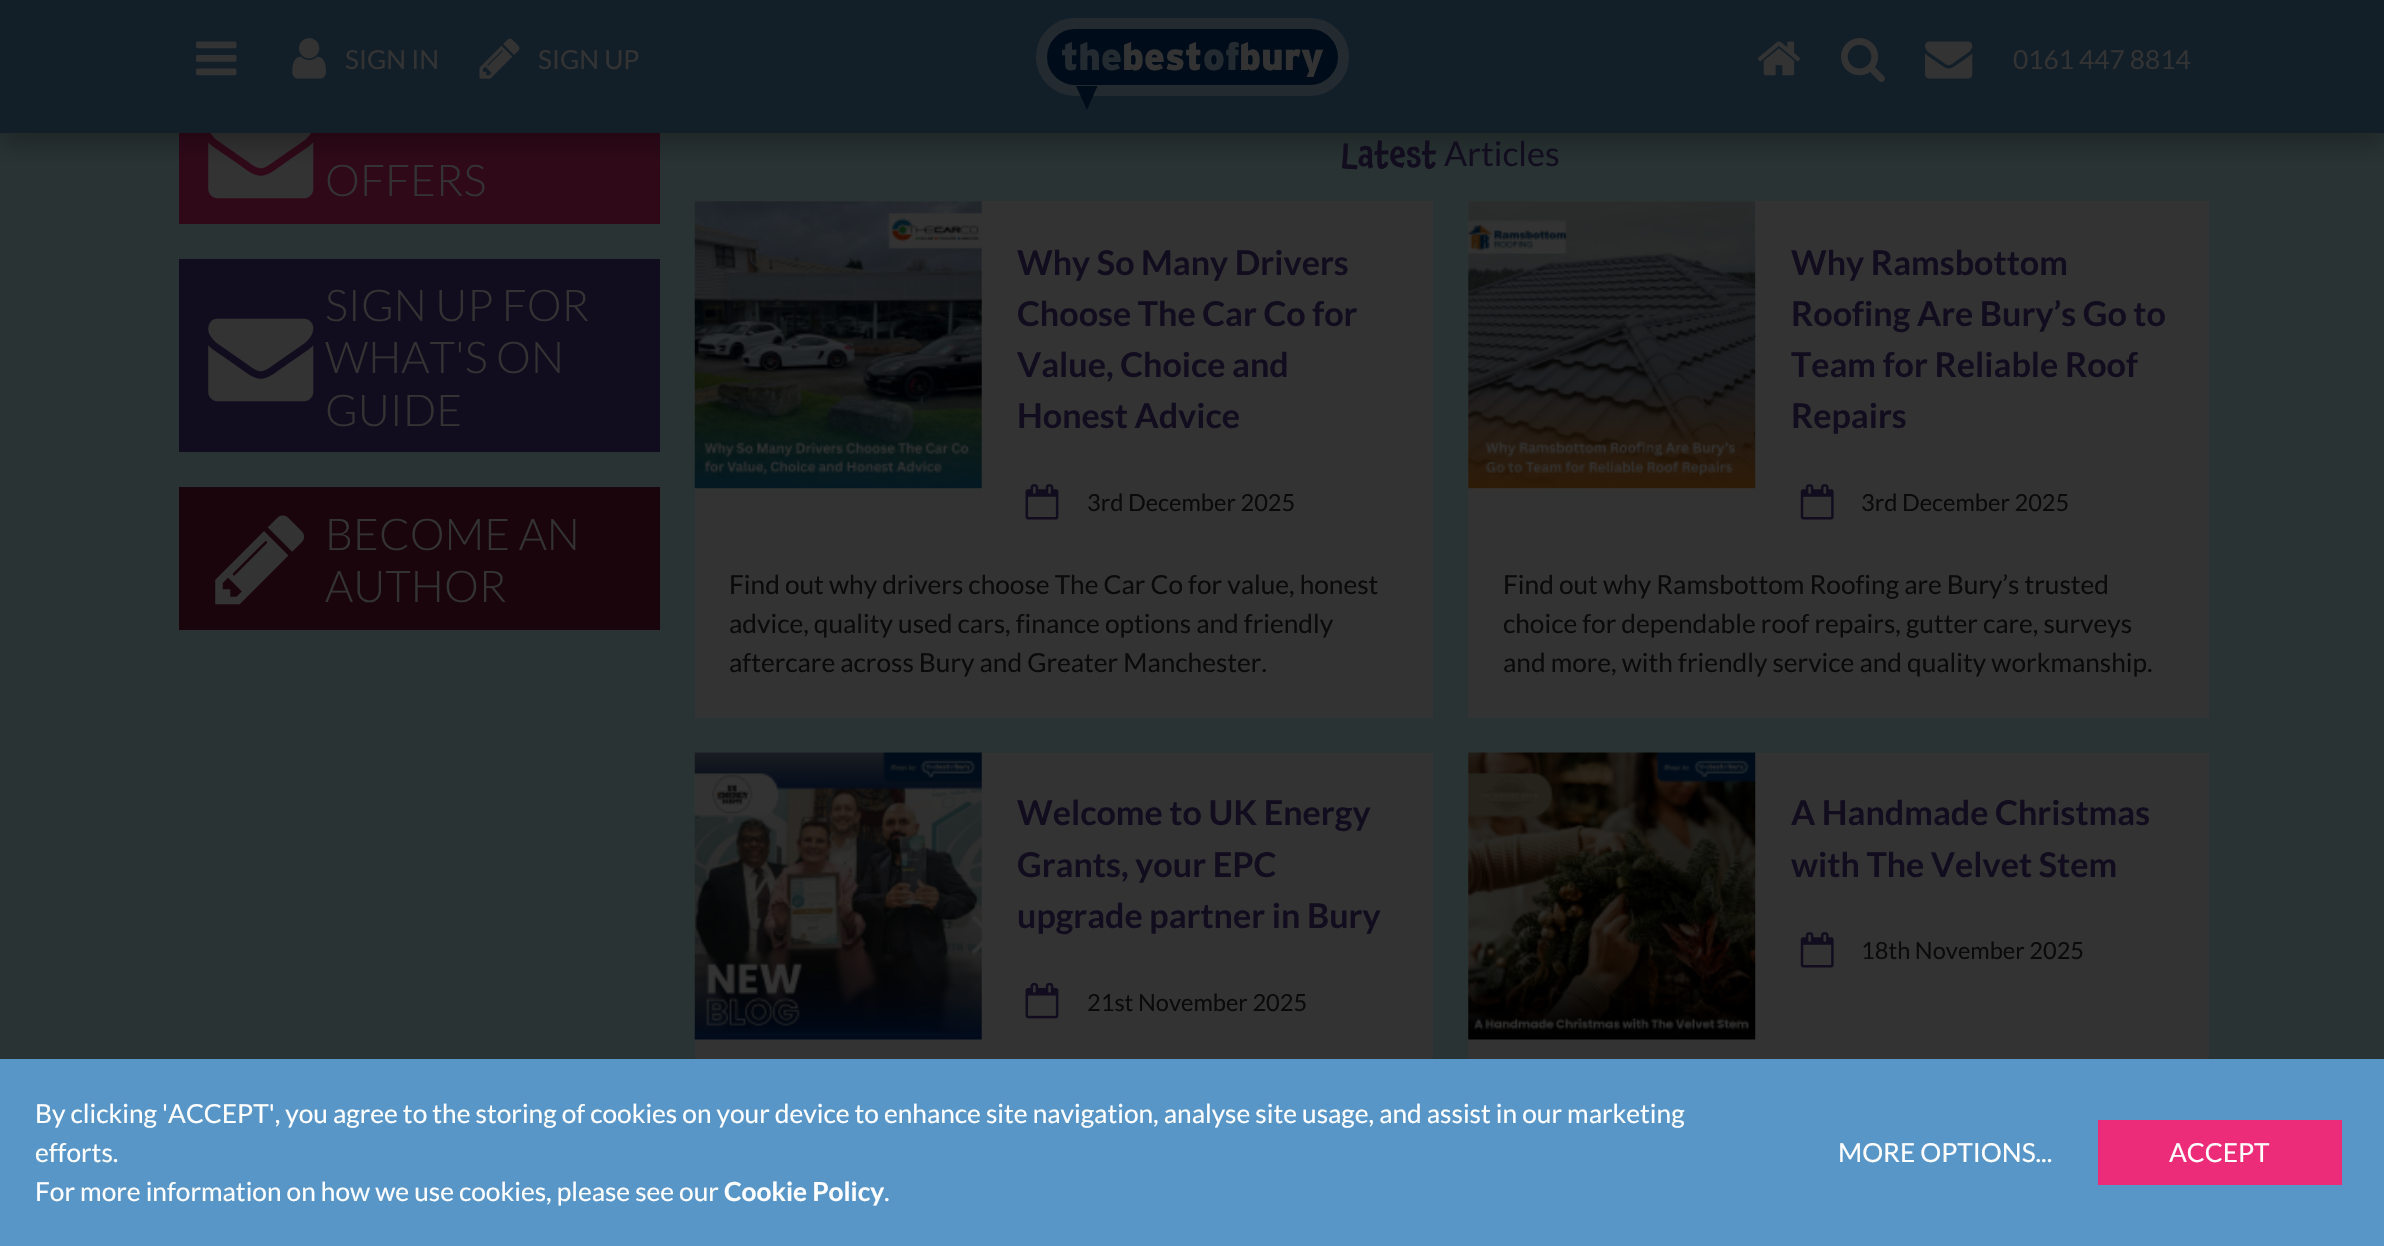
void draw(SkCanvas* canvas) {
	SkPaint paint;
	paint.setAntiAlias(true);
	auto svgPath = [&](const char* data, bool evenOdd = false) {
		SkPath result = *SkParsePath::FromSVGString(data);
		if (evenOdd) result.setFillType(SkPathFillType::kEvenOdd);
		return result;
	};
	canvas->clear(0xff293333);
	paint.setColor(0xff121e28);
	canvas->drawRect(SkRect::MakeXYWH(0, 0, 2384, 133), paint);
	paint.setColor(0xff2f0918);
	canvas->drawRect(SkRect::MakeXYWH(179, 133, 481, 91), paint);
	canvas->drawImageRect(SkImages::DeferredFromEncodedData(SkData::MakeFromFileName("img7.png")), SkRect::MakeXYWH(208, 133, 106, 66), SkSamplingOptions());
	canvas->save();
	canvas->clipRect(SkRect::MakeXYWH(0, 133, 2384, 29));
	paint.setColor(0x4d000000);
	paint.setMaskFilter(SkMaskFilter::MakeBlur(kNormal_SkBlurStyle, 13));
	canvas->drawRect(SkRect::MakeXYWH(0, 9, 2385, 133), paint);
	paint.setMaskFilter(nullptr);
	canvas->restore();
	canvas->drawImageRect(SkImages::DeferredFromEncodedData(SkData::MakeFromFileName("img1.png")), SkRect::MakeXYWH(196, 41, 41, 35), SkSamplingOptions());
	canvas->drawImageRect(SkImages::DeferredFromEncodedData(SkData::MakeFromFileName("img2.png")), SkRect::MakeXYWH(292, 38, 34, 41), SkSamplingOptions());
	SkFont f1(fontMgr->matchFamilyStyle("Lato", SkFontStyle::Normal()), 26.25);
	f1.setSubpixel(true);
	paint.setColor(0xff333333);
	canvas->drawString("SIGN IN", 345, 69, f1, paint);
	canvas->drawImageRect(SkImages::DeferredFromEncodedData(SkData::MakeFromFileName("img3.png")), SkRect::MakeXYWH(479, 38, 41, 41), SkSamplingOptions());
	canvas->drawString("SIGN UP", 538, 69, f1, paint);
	paint.setColor(0xff000c19);
	canvas->drawRoundRect(SkRect::MakeXYWH(1041.5, 23.5, 302, 67), 33.5, 33.5, paint);
	paint.setStroke(true);
	paint.setStrokeWidth(11);
	paint.setColor(0xff242b30);
	canvas->drawRoundRect(SkRect::MakeXYWH(1041.5, 23.5, 302, 67), 33.5, 33.5, paint);
	SkFont f2(fontMgr->matchFamilyStyle("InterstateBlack", SkFontStyle(900, SkFontStyle::kNormal_Width, SkFontStyle::kUpright_Slant)), 38.5);
	f2.setSubpixel(true);
	paint.setStroke(false);
	canvas->drawString("the", 1061, 70, f2, paint);
	paint.setColor(0xff333333);
	canvas->drawString("best", 1122, 70, f2, paint);
	paint.setColor(0xff242b30);
	canvas->drawString("of", 1203, 70, f2, paint);
	paint.setColor(0xff333333);
	canvas->drawString("bury", 1239, 70, f2, paint);
	paint.setColor(0xff000c19);
	canvas->drawPath(svgPath("M1076 86L1087 110L1097.5 86Z", true), paint);
	canvas->drawImageRect(SkImages::DeferredFromEncodedData(SkData::MakeFromFileName("img4.png")), SkRect::MakeXYWH(1757, 41, 44, 35), SkSamplingOptions());
	canvas->drawImageRect(SkImages::DeferredFromEncodedData(SkData::MakeFromFileName("img5.png")), SkRect::MakeXYWH(1841, 38, 44, 44), SkSamplingOptions());
	canvas->drawImageRect(SkImages::DeferredFromEncodedData(SkData::MakeFromFileName("img6.png")), SkRect::MakeXYWH(1925, 41, 48, 38), SkSamplingOptions());
	paint.setColor(0xff333333);
	canvas->drawString("0161 447 8814", 2013, 69, f1, paint);
	SkFont f3(fontMgr->matchFamilyStyle("Lato", SkFontStyle(300, SkFontStyle::kNormal_Width, SkFontStyle::kUpright_Slant)), 43.75);
	f3.setSubpixel(true);
	canvas->drawString("OFFERS", 325, 196, f3, paint);
	paint.setColor(0xff120d1e);
	canvas->drawRect(SkRect::MakeXYWH(179, 259, 481, 193), paint);
	canvas->drawImageRect(SkImages::DeferredFromEncodedData(SkData::MakeFromFileName("img8.png")), SkRect::MakeXYWH(208, 318, 106, 84), SkSamplingOptions());
	paint.setColor(0xff333333);
	canvas->drawString("SIGN UP FOR", 325, 321, f3, paint);
	canvas->drawString("WHAT'S ON", 325, 373, f3, paint);
	canvas->drawString("GUIDE", 325, 426, f3, paint);
	paint.setColor(0xff1a050c);
	canvas->drawRect(SkRect::MakeXYWH(179, 487, 481, 143), paint);
	canvas->drawImageRect(SkImages::DeferredFromEncodedData(SkData::MakeFromFileName("img9.png")), SkRect::MakeXYWH(215, 515, 89, 90), SkSamplingOptions());
	paint.setColor(0xff333333);
	canvas->drawString("BECOME AN", 325, 550, f3, paint);
	canvas->drawString("AUTHOR", 325, 602, f3, paint);
	SkFont f4(fontMgr->matchFamilyStyle("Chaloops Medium", SkFontStyle(500, SkFontStyle::kNormal_Width, SkFontStyle::kUpright_Slant)), 34.1);
	f4.setSubpixel(true);
	paint.setColor(0xff120d1e);
	canvas->drawString("Latest", 1341, 166, f4, paint);
	SkFont f5(fontMgr->matchFamilyStyle("Lato", SkFontStyle::Normal()), 34.1);
	f5.setSubpixel(true);
	canvas->drawString("Articles", 1444, 166, f5, paint);
	paint.setColor(0xff333333);
	canvas->drawRect(SkRect::MakeXYWH(695, 201, 738, 517), paint);
	canvas->drawImageRect(SkImages::DeferredFromEncodedData(SkData::MakeFromFileName("img10.png")), SkRect::MakeXYWH(694, 201, 288, 288), SkSamplingOptions());
	SkFont f6(fontMgr->matchFamilyStyle("Lato", SkFontStyle::Bold()), 34.1);
	f6.setSubpixel(true);
	paint.setColor(0xff120d1e);
	canvas->drawString("Why So Many Drivers", 1017, 275, f6, paint);
	canvas->drawString("Choose The Car Co for", 1017, 326, f6, paint);
	canvas->drawString("Value, Choice and", 1017, 377, f6, paint);
	canvas->drawString("Honest Advice", 1017, 428, f6, paint);
	canvas->drawImageRect(SkImages::DeferredFromEncodedData(SkData::MakeFromFileName("img11.png")), SkRect::MakeXYWH(1025, 484, 34, 36), SkSamplingOptions());
	SkFont f7(fontMgr->matchFamilyStyle("Lato", SkFontStyle::Normal()), 23.6);
	f7.setSubpixel(true);
	paint.setColor(0xff0a0a0a);
	canvas->drawString("3rd December 2025", 1087, 511, f7, paint);
	canvas->drawString("Find out why drivers choose The Car Co for value, honest", 729, 594, f1, paint);
	canvas->drawString("advice, quality used cars, finance options and friendly", 729, 633, f1, paint);
	canvas->drawString("aftercare across Bury and Greater Manchester.", 729, 672, f1, paint);
	paint.setColor(0xff333333);
	canvas->drawRect(SkRect::MakeXYWH(1468, 201, 741, 517), paint);
	canvas->drawImageRect(SkImages::DeferredFromEncodedData(SkData::MakeFromFileName("img12.png")), SkRect::MakeXYWH(1468, 201, 288, 288), SkSamplingOptions());
	paint.setColor(0xff120d1e);
	canvas->drawString("Why Ramsbottom", 1791, 275, f6, paint);
	canvas->drawString("Roofing Are Bury’s Go to", 1791, 326, f6, paint);
	canvas->drawString("Team for Reliable Roof", 1791, 377, f6, paint);
	canvas->drawString("Repairs", 1791, 428, f6, paint);
	canvas->drawImageRect(SkImages::DeferredFromEncodedData(SkData::MakeFromFileName("img13.png")), SkRect::MakeXYWH(1800, 484, 34, 36), SkSamplingOptions());
	paint.setColor(0xff0a0a0a);
	canvas->drawString("3rd December 2025", 1861, 511, f7, paint);
	canvas->drawString("Find out why Ramsbottom Roofing are Bury’s trusted", 1503, 594, f1, paint);
	canvas->drawString("choice for dependable roof repairs, gutter care, surveys", 1503, 633, f1, paint);
	canvas->drawString("and more, with friendly service and quality workmanship.", 1503, 672, f1, paint);
	paint.setColor(0xff333333);
	canvas->drawRect(SkRect::MakeXYWH(695, 753, 738, 306), paint);
	canvas->drawImageRect(SkImages::DeferredFromEncodedData(SkData::MakeFromFileName("img14.png")), SkRect::MakeXYWH(694, 752, 288, 288), SkSamplingOptions());
	paint.setColor(0xff120d1e);
	canvas->drawString("Welcome to UK Energy", 1017, 825, f6, paint);
	canvas->drawString("Grants, your EPC", 1017, 877, f6, paint);
	canvas->drawString("upgrade partner in Bury", 1017, 928, f6, paint);
	canvas->drawImageRect(SkImages::DeferredFromEncodedData(SkData::MakeFromFileName("img15.png")), SkRect::MakeXYWH(1025, 982, 34, 37), SkSamplingOptions());
	paint.setColor(0xff0a0a0a);
	canvas->drawString("21st November 2025", 1087, 1011, f7, paint);
	paint.setColor(0xff333333);
	canvas->drawRect(SkRect::MakeXYWH(1468, 753, 741, 306), paint);
	canvas->drawImageRect(SkImages::DeferredFromEncodedData(SkData::MakeFromFileName("img16.png")), SkRect::MakeXYWH(1468, 752, 288, 288), SkSamplingOptions());
	paint.setColor(0xff120d1e);
	canvas->drawString("A Handmade Christmas", 1791, 825, f6, paint);
	canvas->drawString("with The Velvet Stem", 1791, 877, f6, paint);
	canvas->drawImageRect(SkImages::DeferredFromEncodedData(SkData::MakeFromFileName("img13.png")), SkRect::MakeXYWH(1800, 932, 34, 36), SkSamplingOptions());
	paint.setColor(0xff0a0a0a);
	canvas->drawString("18th November 2025", 1861, 959, f7, paint);
	paint.setColor(0xff5896c8);
	canvas->drawRect(SkRect::MakeXYWH(0, 1059, 2384, 187), paint);
	paint.setColor(0xffffffff);
	canvas->drawString("By clicking 'ACCEPT', you agree to the storing of cookies on your device to enhance site navigation, analyse site usage, and assist in our marketing", 35, 1123, f1, paint);
	canvas->drawString("efforts.", 35, 1162, f1, paint);
	canvas->drawString("For more information on how we use cookies, please see our", 35, 1201, f1, paint);
	SkFont f8(fontMgr->matchFamilyStyle("Lato", SkFontStyle::Bold()), 26.25);
	f8.setSubpixel(true);
	canvas->drawString("Cookie Policy", 724, 1201, f8, paint);
	canvas->drawString(".", 884, 1201, f1, paint);
	canvas->drawString("MORE OPTIONS...", 1838, 1162, f1, paint);
	paint.setColor(0xffec2b79);
	canvas->drawRect(SkRect::MakeXYWH(2098, 1120, 244, 65), paint);
	paint.setColor(0xffffffff);
	canvas->drawString("ACCEPT", 2169, 1162, f1, paint);
}
